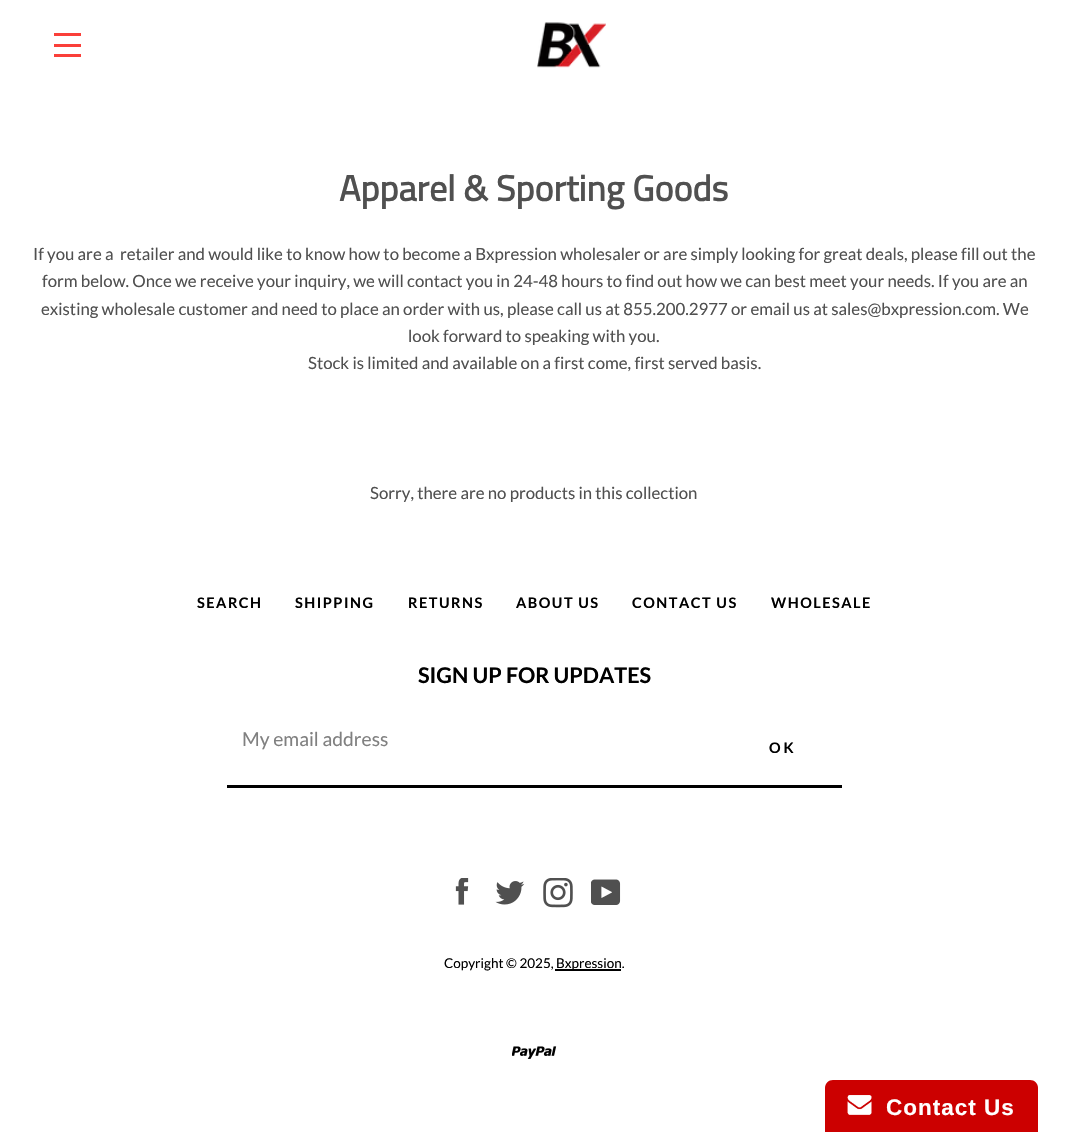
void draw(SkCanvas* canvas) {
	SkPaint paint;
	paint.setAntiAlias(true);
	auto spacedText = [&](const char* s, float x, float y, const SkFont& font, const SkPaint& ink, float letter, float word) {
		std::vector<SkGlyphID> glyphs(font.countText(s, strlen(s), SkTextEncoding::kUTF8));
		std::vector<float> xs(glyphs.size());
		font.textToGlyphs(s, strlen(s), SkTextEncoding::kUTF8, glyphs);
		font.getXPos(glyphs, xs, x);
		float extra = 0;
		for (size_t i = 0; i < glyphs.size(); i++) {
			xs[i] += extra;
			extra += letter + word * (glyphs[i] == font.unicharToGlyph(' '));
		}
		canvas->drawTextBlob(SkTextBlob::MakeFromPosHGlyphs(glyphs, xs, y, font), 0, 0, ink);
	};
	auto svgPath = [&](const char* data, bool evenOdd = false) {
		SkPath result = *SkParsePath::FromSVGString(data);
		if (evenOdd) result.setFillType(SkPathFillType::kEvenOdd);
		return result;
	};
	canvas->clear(0xffffffff);
	paint.setColor(0xfffa3f39);
	canvas->drawRect(SkRect::MakeXYWH(54, 33, 27, 3), paint);
	canvas->drawRect(SkRect::MakeXYWH(54, 44, 27, 3), paint);
	canvas->drawRect(SkRect::MakeXYWH(54, 54, 27, 3), paint);
	canvas->drawImageRect(SkImages::DeferredFromEncodedData(SkData::MakeFromFileName("img1.png")), SkRect::MakeXYWH(537, 22, 69, 46), SkSamplingOptions());
	SkFont f1(fontMgr->matchFamilyStyle("Titillium Web", SkFontStyle::Bold()), 36);
	f1.setSubpixel(true);
	paint.setColor(0xff505050);
	canvas->drawString("Apparel & Sporting Goods", 339, 201, f1, paint);
	SkFont f2(fontMgr->matchFamilyStyle("Lato", SkFontStyle::Normal()), 16.8);
	f2.setSubpixel(true);
	canvas->drawString("If you are a  retailer and would like to know how to become a Bxpression wholesaler or are simply looking for great deals, please fill out the", 33, 260, f2, paint);
	canvas->drawString("form below. Once we receive your inquiry, we will contact you in 24-48 hours to find out how we can best meet your needs. If you are an", 42, 287, f2, paint);
	canvas->drawString("existing wholesale customer and need to place an order with us, please call us at 855.200.2977 or email us at sales@bxpression.com. We", 41, 315, f2, paint);
	canvas->drawString("look forward to speaking with you.", 408, 342, f2, paint);
	canvas->drawString("Stock is limited and available on a first come, first served basis.", 308, 369, f2, paint);
	canvas->drawString("Sorry, there are no products in this collection", 370, 499, f2, paint);
	SkFont f3(fontMgr->matchFamilyStyle("Lato", SkFontStyle::Bold()), 14.5);
	f3.setSubpixel(true);
	paint.setColor(0xff000000);
	spacedText("SEARCH", 197, 608, f3, paint, 1.5, 0);
	spacedText("SHIPPING", 295, 608, f3, paint, 1.5, 0);
	spacedText("RETURNS", 408, 608, f3, paint, 1.5, 0);
	spacedText("ABOUT US", 516, 608, f3, paint, 1.5, 0);
	spacedText("CONTACT US", 632, 608, f3, paint, 1.5, 0);
	spacedText("WHOLESALE", 771, 608, f3, paint, 1.5, 0);
	SkFont f4(fontMgr->matchFamilyStyle("Lato", SkFontStyle::Bold()), 21.6);
	f4.setSubpixel(true);
	canvas->drawString("SIGN UP FOR UPDATES", 418, 683, f4, paint);
	canvas->drawRect(SkRect::MakeXYWH(227, 785, 615, 3), paint);
	SkFont f5(fontMgr->matchFamilyStyle("Lato", SkFontStyle::Normal()), 19.25);
	f5.setSubpixel(true);
	paint.setColor(0xff808080);
	canvas->drawString("My email address", 242, 746, f5, paint);
	paint.setColor(0xff000000);
	spacedText("OK", 769, 753, f3, paint, 3, 0);
	canvas->drawImageRect(SkImages::DeferredFromEncodedData(SkData::MakeFromFileName("img2.png")), SkRect::MakeXYWH(455, 878, 14, 27), SkSamplingOptions());
	canvas->drawImageRect(SkImages::DeferredFromEncodedData(SkData::MakeFromFileName("img3.png")), SkRect::MakeXYWH(495, 881, 30, 24), SkSamplingOptions());
	canvas->drawImageRect(SkImages::DeferredFromEncodedData(SkData::MakeFromFileName("img4.png")), SkRect::MakeXYWH(543, 878, 30, 30), SkSamplingOptions());
	canvas->drawImageRect(SkImages::DeferredFromEncodedData(SkData::MakeFromFileName("img5.png")), SkRect::MakeXYWH(591, 879, 30, 26), SkSamplingOptions());
	SkFont f6(fontMgr->matchFamilyStyle("Lato", SkFontStyle::Normal()), 13.5);
	f6.setSubpixel(true);
	canvas->drawString("Copyright © 2025,", 444, 968, f6, paint);
	canvas->drawRect(SkRect::MakeXYWH(555, 969, 66, 2), paint);
	canvas->drawString("Bxpression.", 556, 968, f6, paint);
	canvas->drawImageRect(SkImages::DeferredFromEncodedData(SkData::MakeFromFileName("img6.png")), SkRect::MakeXYWH(512, 1046, 45, 13), SkSamplingOptions());
	paint.setColor(0xffcc0000);
	canvas->drawPath(svgPath("M833 1080H1030C1034.5 1080 1038 1083.5 1038 1088V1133H825V1088C825 1083.5 828.5 1080 833 1080Z"), paint);
	canvas->drawImageRect(SkImages::DeferredFromEncodedData(SkData::MakeFromFileName("img7.png")), SkRect::MakeXYWH(847, 1095, 25, 20), SkSamplingOptions());
	SkFont f7(fontMgr->matchFamilyStyle("Liberation Sans", SkFontStyle::Bold()), 22.5);
	f7.setSubpixel(true);
	paint.setColor(0xffffffff);
	spacedText("Contact Us", 886, 1115, f7, paint, 1, 0);
}
